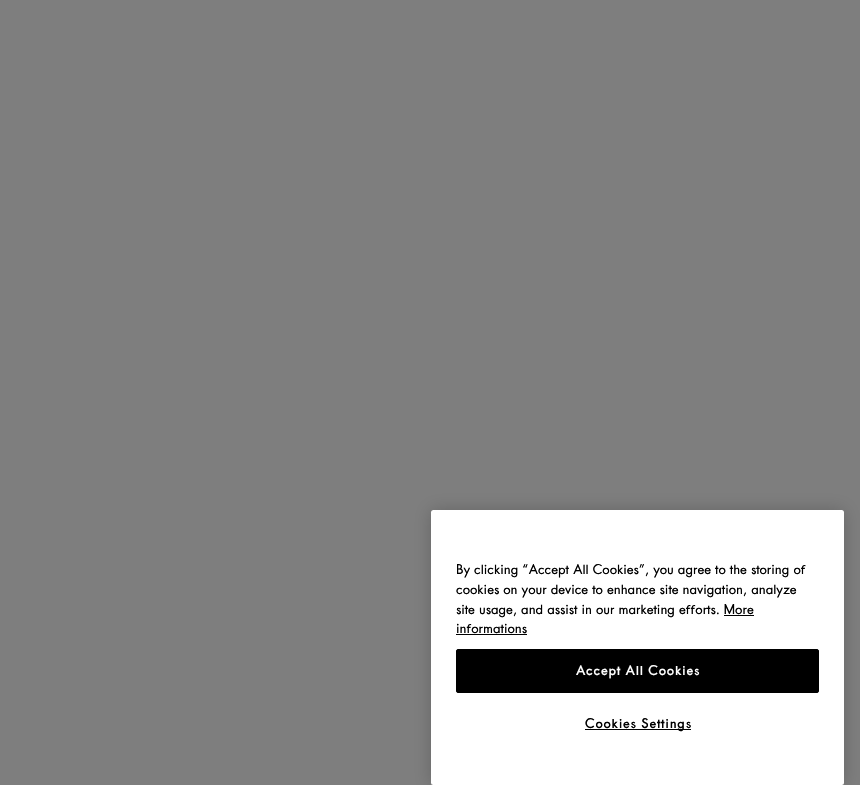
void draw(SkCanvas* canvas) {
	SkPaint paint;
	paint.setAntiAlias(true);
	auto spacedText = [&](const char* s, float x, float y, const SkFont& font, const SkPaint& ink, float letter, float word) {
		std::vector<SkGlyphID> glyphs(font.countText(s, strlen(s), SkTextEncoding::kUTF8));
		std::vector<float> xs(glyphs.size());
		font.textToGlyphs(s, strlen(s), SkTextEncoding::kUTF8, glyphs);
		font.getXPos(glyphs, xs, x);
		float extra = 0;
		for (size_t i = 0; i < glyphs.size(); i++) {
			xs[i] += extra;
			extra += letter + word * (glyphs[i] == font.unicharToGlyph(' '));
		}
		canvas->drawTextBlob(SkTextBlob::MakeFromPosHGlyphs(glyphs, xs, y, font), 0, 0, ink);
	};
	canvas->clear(0xff7e7e7e);
	paint.setColor(0x33000000);
	paint.setMaskFilter(SkMaskFilter::MakeBlur(kNormal_SkBlurStyle, 9));
	canvas->drawRoundRect(SkRect::MakeXYWH(431, 510, 413, 275), 2.5, 2.5, paint);
	paint.setMaskFilter(nullptr);
	paint.setColor(0xffffffff);
	canvas->drawRoundRect(SkRect::MakeXYWH(431, 510, 413, 275), 2.5, 2.5, paint);
	SkFont f1(fontMgr->matchFamilyStyle("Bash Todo", SkFontStyle(500, SkFontStyle::kNormal_Width, SkFontStyle::kUpright_Slant)), 13.1);
	f1.setSubpixel(true);
	paint.setColor(0xff000000);
	canvas->drawString("By clicking “Accept All Cookies”, you agree to the storing of", 456, 574, f1, paint);
	canvas->drawString("cookies on your device to enhance site navigation, analyze", 456, 594, f1, paint);
	canvas->drawString("site usage, and assist in our marketing efforts. More", 456, 614, f1, paint);
	canvas->drawString("informations", 456, 633, f1, paint);
	canvas->drawRect(SkRect::MakeXYWH(724, 615, 30, 1), paint);
	canvas->drawRect(SkRect::MakeXYWH(456, 634, 71, 1), paint);
	canvas->drawRoundRect(SkRect::MakeXYWH(456.5, 649.5, 362, 43), 1.5, 1.5, paint);
	paint.setStroke(true);
	paint.setStrokeWidth(1);
	canvas->drawRoundRect(SkRect::MakeXYWH(456.5, 649.5, 362, 43), 1.5, 1.5, paint);
	SkFont f2(fontMgr->matchFamilyStyle("Bash Todo", SkFontStyle::Bold()), 13.1);
	f2.setSubpixel(true);
	paint.setStroke(false);
	paint.setColor(0xffffffff);
	spacedText("Accept All Cookies", 576, 675, f2, paint, 0.7, 0);
	paint.setColor(0xff000000);
	canvas->drawRect(SkRect::MakeXYWH(585, 729, 106, 1), paint);
	spacedText("Cookies Settings", 585, 728, f2, paint, 0.7, 0);
}
